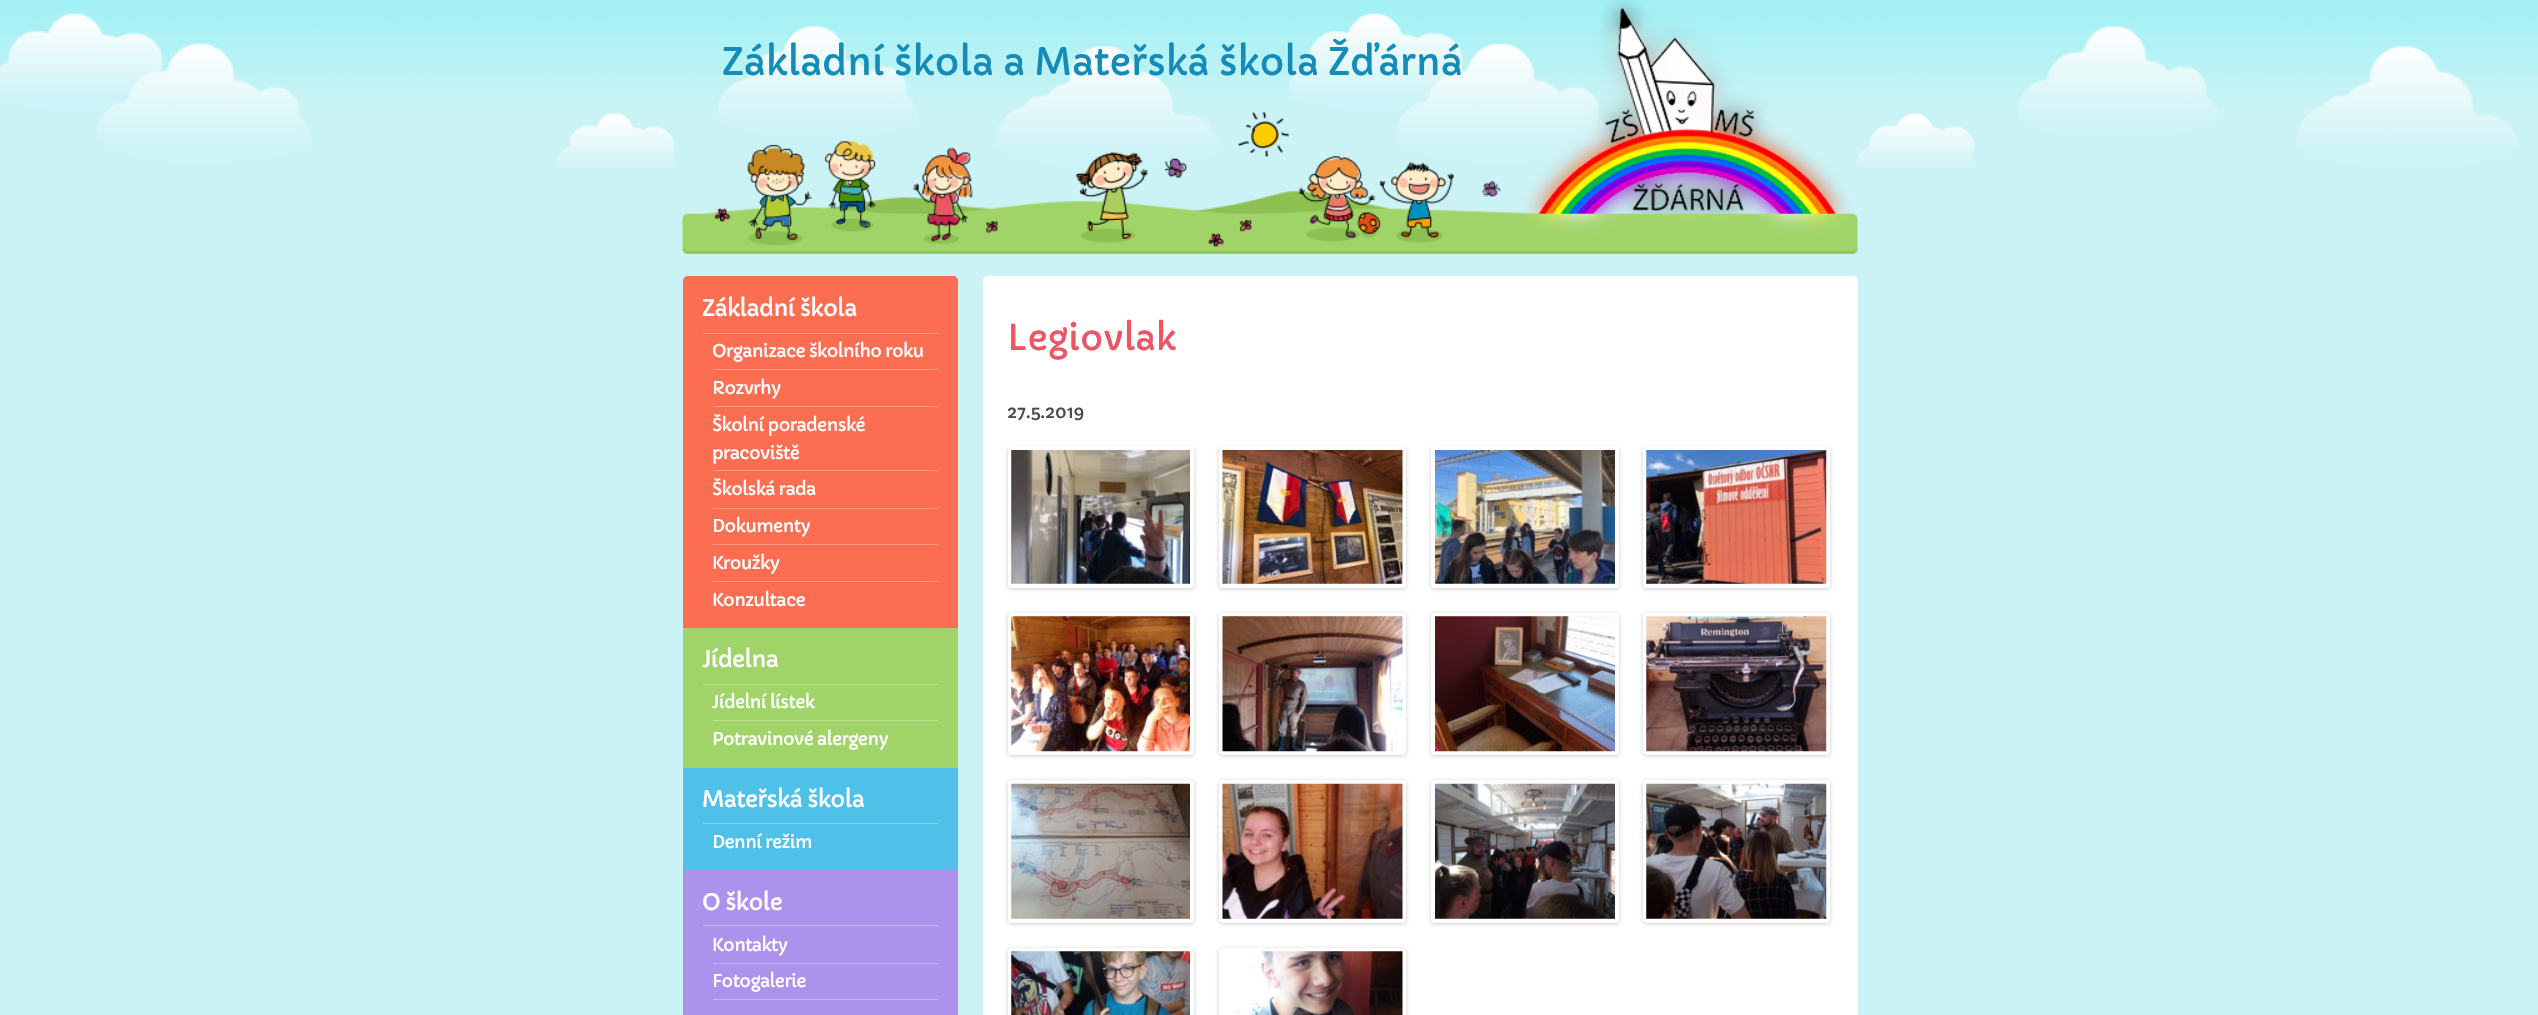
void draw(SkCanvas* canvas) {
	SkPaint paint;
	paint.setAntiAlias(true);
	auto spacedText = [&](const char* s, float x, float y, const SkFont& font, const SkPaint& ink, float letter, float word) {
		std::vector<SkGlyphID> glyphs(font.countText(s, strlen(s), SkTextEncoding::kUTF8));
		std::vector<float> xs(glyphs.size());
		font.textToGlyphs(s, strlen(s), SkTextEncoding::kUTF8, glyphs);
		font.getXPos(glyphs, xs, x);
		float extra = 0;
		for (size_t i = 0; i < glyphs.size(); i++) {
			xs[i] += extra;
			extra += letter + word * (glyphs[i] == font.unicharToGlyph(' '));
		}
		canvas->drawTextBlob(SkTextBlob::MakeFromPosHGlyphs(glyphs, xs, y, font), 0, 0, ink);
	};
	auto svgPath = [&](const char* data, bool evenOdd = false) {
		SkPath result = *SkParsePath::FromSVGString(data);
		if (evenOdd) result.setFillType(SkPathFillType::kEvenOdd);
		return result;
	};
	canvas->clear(0xffcbf3f5);
	canvas->drawImageRect(SkImages::DeferredFromEncodedData(SkData::MakeFromFileName("img1.png")), SkRect::MakeXYWH(0, 0, 2538, 169), SkSamplingOptions());
	canvas->drawImageRect(SkImages::DeferredFromEncodedData(SkData::MakeFromFileName("img2.png")), SkRect::MakeXYWH(682, 0, 1176, 254), SkSamplingOptions());
	SkFont f1(fontMgr->matchFamilyStyle("Capriola", SkFontStyle::Normal()), 37.5);
	f1.setSubpixel(true);
	paint.setColor(0xff158bb7);
	canvas->drawString("Základní škola a Mateřská škola Žďárná", 722, 75, f1, paint);
	paint.setColor(0xfffc6e51);
	canvas->drawPath(svgPath("M688 276H953C956 276 958 278 958 281V628H683V281C683 278 685 276 688 276Z"), paint);
	paint.setColor(0xfffd9a85);
	canvas->drawRect(SkRect::MakeXYWH(703, 333, 235, 1), paint);
	SkFont f2(fontMgr->matchFamilyStyle("Capriola", SkFontStyle::Normal()), 22.5);
	f2.setSubpixel(true);
	paint.setColor(0xffffffff);
	spacedText("Základní škola", 702, 316, f2, paint, -0.6, 0);
	paint.setColor(0xfffd9a85);
	canvas->drawRect(SkRect::MakeXYWH(713, 369, 225, 1), paint);
	SkFont f3(fontMgr->matchFamilyStyle("Capriola", SkFontStyle::Normal()), 17.5);
	f3.setSubpixel(true);
	paint.setColor(0xffffffff);
	spacedText("Organizace školního roku", 712, 357, f3, paint, -0.6, 0);
	paint.setColor(0xfffd9a85);
	canvas->drawRect(SkRect::MakeXYWH(713, 406, 225, 1), paint);
	paint.setColor(0xffffffff);
	spacedText("Rozvrhy", 712, 394, f3, paint, -0.6, 0);
	paint.setColor(0xfffd9a85);
	canvas->drawRect(SkRect::MakeXYWH(713, 470, 225, 1), paint);
	paint.setColor(0xffffffff);
	spacedText("Školní poradenské", 712, 431, f3, paint, -0.6, 0);
	spacedText("pracoviště", 712, 459, f3, paint, -0.6, 0);
	paint.setColor(0xfffd9a85);
	canvas->drawRect(SkRect::MakeXYWH(713, 508, 225, 1), paint);
	paint.setColor(0xffffffff);
	spacedText("Školská rada", 712, 495, f3, paint, -0.6, 0);
	paint.setColor(0xfffd9a85);
	canvas->drawRect(SkRect::MakeXYWH(713, 544, 225, 1), paint);
	paint.setColor(0xffffffff);
	spacedText("Dokumenty", 712, 532, f3, paint, -0.6, 0);
	paint.setColor(0xfffd9a85);
	canvas->drawRect(SkRect::MakeXYWH(713, 581, 225, 1), paint);
	paint.setColor(0xffffffff);
	spacedText("Kroužky", 712, 569, f3, paint, -0.6, 0);
	spacedText("Konzultace", 712, 606, f3, paint, -0.6, 0);
	paint.setColor(0xffa0d468);
	canvas->drawRect(SkRect::MakeXYWH(683, 628, 275, 140), paint);
	paint.setColor(0xffbde195);
	canvas->drawRect(SkRect::MakeXYWH(703, 684, 235, 1), paint);
	paint.setColor(0xffffffff);
	spacedText("Jídelna", 702, 667, f2, paint, -0.6, 0);
	paint.setColor(0xffbde195);
	canvas->drawRect(SkRect::MakeXYWH(713, 720, 225, 1), paint);
	paint.setColor(0xffffffff);
	spacedText("Jídelní lístek", 712, 708, f3, paint, -0.6, 0);
	spacedText("Potravinové alergeny", 712, 745, f3, paint, -0.6, 0);
	paint.setColor(0xff4fc1e9);
	canvas->drawRect(SkRect::MakeXYWH(683, 768, 275, 102), paint);
	paint.setColor(0xff84d4f0);
	canvas->drawRect(SkRect::MakeXYWH(703, 823, 235, 1), paint);
	paint.setColor(0xffffffff);
	spacedText("Mateřská škola", 702, 807, f2, paint, -0.6, 0);
	spacedText("Denní režim", 712, 848, f3, paint, -0.6, 0);
	paint.setColor(0xffac92ec);
	canvas->drawRect(SkRect::MakeXYWH(683, 870, 275, 145), paint);
	paint.setColor(0xffc5b3f2);
	canvas->drawRect(SkRect::MakeXYWH(703, 925, 235, 1), paint);
	paint.setColor(0xffffffff);
	spacedText("O škole", 702, 910, f2, paint, -0.6, 0);
	paint.setColor(0xffc5b3f2);
	canvas->drawRect(SkRect::MakeXYWH(713, 963, 225, 1), paint);
	paint.setColor(0xffffffff);
	spacedText("Kontakty", 712, 951, f3, paint, -0.6, 0);
	paint.setColor(0xffc5b3f2);
	canvas->drawRect(SkRect::MakeXYWH(713, 999, 225, 1), paint);
	paint.setColor(0xffffffff);
	spacedText("Fotogalerie", 712, 987, f3, paint, -0.6, 0);
	canvas->drawRoundRect(SkRect::MakeXYWH(983, 276, 875, 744), 5, 5, paint);
	SkFont f4(fontMgr->matchFamilyStyle("Capriola", SkFontStyle::Normal()), 35);
	f4.setSubpixel(true);
	paint.setColor(0xffed5565);
	canvas->drawString("Legiovlak", 1007, 350, f4, paint);
	paint.setColor(0xff434a54);
	canvas->drawString("27.5.2019", 1007, 418, f3, paint);
	paint.setColor(0x33000000);
	paint.setMaskFilter(SkMaskFilter::MakeBlur(kNormal_SkBlurStyle, 2));
	canvas->drawRoundRect(SkRect::MakeXYWH(1008, 448, 186, 141), 4, 4, paint);
	paint.setMaskFilter(nullptr);
	paint.setColor(0xffffffff);
	canvas->drawRoundRect(SkRect::MakeXYWH(1008, 446, 186, 142), 4, 4, paint);
	canvas->drawImageRect(SkImages::DeferredFromEncodedData(SkData::MakeFromFileName("img3.png")), SkRect::MakeXYWH(1011, 450, 179, 134), SkSamplingOptions());
	paint.setColor(0x33000000);
	paint.setMaskFilter(SkMaskFilter::MakeBlur(kNormal_SkBlurStyle, 2));
	canvas->drawRoundRect(SkRect::MakeXYWH(1219, 448, 187, 141), 4, 4, paint);
	paint.setMaskFilter(nullptr);
	paint.setColor(0xffffffff);
	canvas->drawRoundRect(SkRect::MakeXYWH(1219, 446, 187, 142), 4, 4, paint);
	canvas->drawImageRect(SkImages::DeferredFromEncodedData(SkData::MakeFromFileName("img4.png")), SkRect::MakeXYWH(1222, 450, 181, 134), SkSamplingOptions());
	paint.setColor(0x33000000);
	paint.setMaskFilter(SkMaskFilter::MakeBlur(kNormal_SkBlurStyle, 2));
	canvas->drawRoundRect(SkRect::MakeXYWH(1431, 448, 188, 141), 4, 4, paint);
	paint.setMaskFilter(nullptr);
	paint.setColor(0xffffffff);
	canvas->drawRoundRect(SkRect::MakeXYWH(1431, 446, 188, 142), 4, 4, paint);
	canvas->drawImageRect(SkImages::DeferredFromEncodedData(SkData::MakeFromFileName("img5.png")), SkRect::MakeXYWH(1435, 450, 180, 134), SkSamplingOptions());
	paint.setColor(0x33000000);
	paint.setMaskFilter(SkMaskFilter::MakeBlur(kNormal_SkBlurStyle, 2));
	canvas->drawRoundRect(SkRect::MakeXYWH(1643, 448, 187, 141), 4, 4, paint);
	paint.setMaskFilter(nullptr);
	paint.setColor(0xffffffff);
	canvas->drawRoundRect(SkRect::MakeXYWH(1643, 446, 187, 142), 4, 4, paint);
	canvas->drawImageRect(SkImages::DeferredFromEncodedData(SkData::MakeFromFileName("img6.png")), SkRect::MakeXYWH(1646, 450, 181, 134), SkSamplingOptions());
	paint.setColor(0x33000000);
	paint.setMaskFilter(SkMaskFilter::MakeBlur(kNormal_SkBlurStyle, 2));
	canvas->drawRoundRect(SkRect::MakeXYWH(1008, 614, 186, 142), 4, 4, paint);
	paint.setMaskFilter(nullptr);
	paint.setColor(0xffffffff);
	canvas->drawRoundRect(SkRect::MakeXYWH(1008, 613, 186, 142), 4, 4, paint);
	canvas->drawImageRect(SkImages::DeferredFromEncodedData(SkData::MakeFromFileName("img7.png")), SkRect::MakeXYWH(1011, 616, 179, 136), SkSamplingOptions());
	paint.setColor(0x33000000);
	paint.setMaskFilter(SkMaskFilter::MakeBlur(kNormal_SkBlurStyle, 2));
	canvas->drawRoundRect(SkRect::MakeXYWH(1219, 614, 187, 142), 4, 4, paint);
	paint.setMaskFilter(nullptr);
	paint.setColor(0xffffffff);
	canvas->drawRoundRect(SkRect::MakeXYWH(1219, 613, 187, 142), 4, 4, paint);
	canvas->drawImageRect(SkImages::DeferredFromEncodedData(SkData::MakeFromFileName("img8.png")), SkRect::MakeXYWH(1222, 616, 181, 136), SkSamplingOptions());
	paint.setColor(0x33000000);
	paint.setMaskFilter(SkMaskFilter::MakeBlur(kNormal_SkBlurStyle, 2));
	canvas->drawRoundRect(SkRect::MakeXYWH(1431, 614, 188, 142), 4, 4, paint);
	paint.setMaskFilter(nullptr);
	paint.setColor(0xffffffff);
	canvas->drawRoundRect(SkRect::MakeXYWH(1431, 613, 188, 142), 4, 4, paint);
	canvas->drawImageRect(SkImages::DeferredFromEncodedData(SkData::MakeFromFileName("img9.png")), SkRect::MakeXYWH(1435, 616, 180, 136), SkSamplingOptions());
	paint.setColor(0x33000000);
	paint.setMaskFilter(SkMaskFilter::MakeBlur(kNormal_SkBlurStyle, 2));
	canvas->drawRoundRect(SkRect::MakeXYWH(1643, 614, 187, 142), 4, 4, paint);
	paint.setMaskFilter(nullptr);
	paint.setColor(0xffffffff);
	canvas->drawRoundRect(SkRect::MakeXYWH(1643, 613, 187, 142), 4, 4, paint);
	canvas->drawImageRect(SkImages::DeferredFromEncodedData(SkData::MakeFromFileName("img10.png")), SkRect::MakeXYWH(1646, 616, 181, 136), SkSamplingOptions());
	paint.setColor(0x33000000);
	paint.setMaskFilter(SkMaskFilter::MakeBlur(kNormal_SkBlurStyle, 2));
	canvas->drawRoundRect(SkRect::MakeXYWH(1008, 781, 186, 143), 4, 4, paint);
	paint.setMaskFilter(nullptr);
	paint.setColor(0xffffffff);
	canvas->drawRoundRect(SkRect::MakeXYWH(1008, 780, 186, 143), 4, 4, paint);
	canvas->drawImageRect(SkImages::DeferredFromEncodedData(SkData::MakeFromFileName("img11.png")), SkRect::MakeXYWH(1011, 783, 179, 136), SkSamplingOptions());
	paint.setColor(0x33000000);
	paint.setMaskFilter(SkMaskFilter::MakeBlur(kNormal_SkBlurStyle, 2));
	canvas->drawRoundRect(SkRect::MakeXYWH(1219, 781, 187, 143), 4, 4, paint);
	paint.setMaskFilter(nullptr);
	paint.setColor(0xffffffff);
	canvas->drawRoundRect(SkRect::MakeXYWH(1219, 780, 187, 143), 4, 4, paint);
	canvas->drawImageRect(SkImages::DeferredFromEncodedData(SkData::MakeFromFileName("img12.png")), SkRect::MakeXYWH(1222, 783, 181, 136), SkSamplingOptions());
	paint.setColor(0x33000000);
	paint.setMaskFilter(SkMaskFilter::MakeBlur(kNormal_SkBlurStyle, 2));
	canvas->drawRoundRect(SkRect::MakeXYWH(1431, 781, 188, 143), 4, 4, paint);
	paint.setMaskFilter(nullptr);
	paint.setColor(0xffffffff);
	canvas->drawRoundRect(SkRect::MakeXYWH(1431, 780, 188, 143), 4, 4, paint);
	canvas->drawImageRect(SkImages::DeferredFromEncodedData(SkData::MakeFromFileName("img13.png")), SkRect::MakeXYWH(1435, 783, 180, 136), SkSamplingOptions());
	paint.setColor(0x33000000);
	paint.setMaskFilter(SkMaskFilter::MakeBlur(kNormal_SkBlurStyle, 2));
	canvas->drawRoundRect(SkRect::MakeXYWH(1643, 781, 187, 143), 4, 4, paint);
	paint.setMaskFilter(nullptr);
	paint.setColor(0xffffffff);
	canvas->drawRoundRect(SkRect::MakeXYWH(1643, 780, 187, 143), 4, 4, paint);
	canvas->drawImageRect(SkImages::DeferredFromEncodedData(SkData::MakeFromFileName("img14.png")), SkRect::MakeXYWH(1646, 783, 181, 136), SkSamplingOptions());
	paint.setColor(0x33000000);
	paint.setMaskFilter(SkMaskFilter::MakeBlur(kNormal_SkBlurStyle, 2));
	canvas->drawRoundRect(SkRect::MakeXYWH(1008, 949, 186, 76), 4, 4, paint);
	paint.setMaskFilter(nullptr);
	paint.setColor(0xffffffff);
	canvas->drawRoundRect(SkRect::MakeXYWH(1008, 948, 186, 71), 4, 4, paint);
	canvas->drawImageRect(SkImages::DeferredFromEncodedData(SkData::MakeFromFileName("img15.png")), SkRect::MakeXYWH(1011, 951, 179, 64), SkSamplingOptions());
	canvas->save();
	canvas->clipPath(svgPath("M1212 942H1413V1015H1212ZM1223 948H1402C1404 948 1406 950 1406 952V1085C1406 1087 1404 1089 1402 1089H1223C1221 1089 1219 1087 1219 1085V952C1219 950 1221 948 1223 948Z", true), true);
	paint.setColor(0x33000000);
	paint.setMaskFilter(SkMaskFilter::MakeBlur(kNormal_SkBlurStyle, 2));
	canvas->drawRoundRect(SkRect::MakeXYWH(1219, 949, 187, 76), 4, 4, paint);
	paint.setMaskFilter(nullptr);
	canvas->restore();
	canvas->drawImageRect(SkImages::DeferredFromEncodedData(SkData::MakeFromFileName("img16.png")), SkRect::MakeXYWH(1234, 951, 169, 64), SkSamplingOptions());
}
